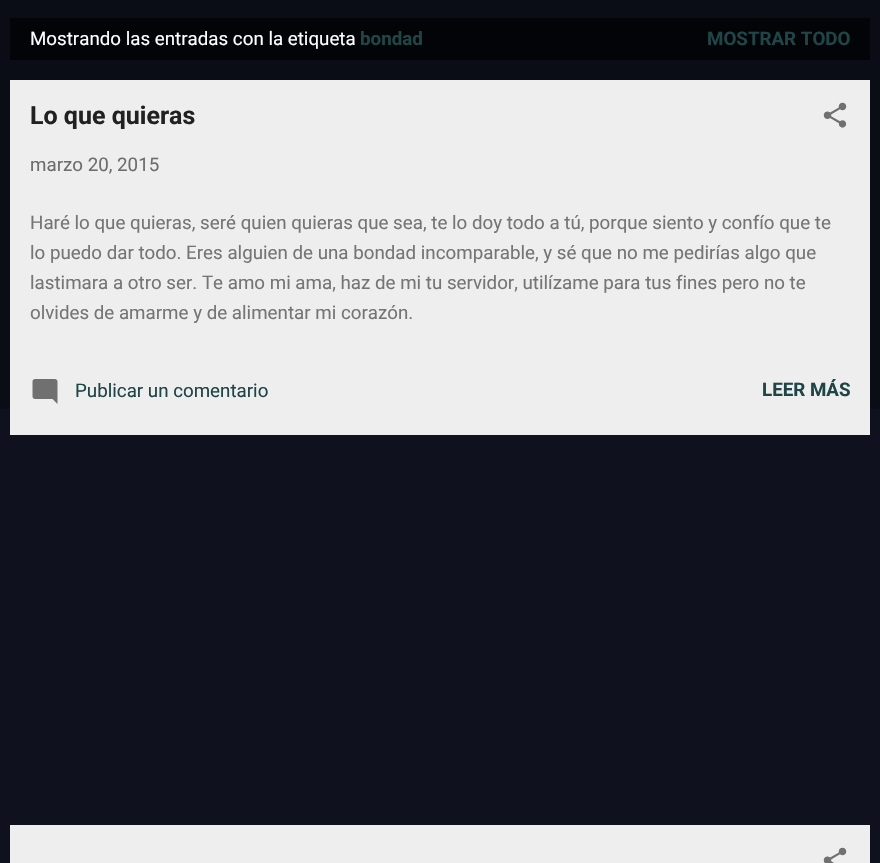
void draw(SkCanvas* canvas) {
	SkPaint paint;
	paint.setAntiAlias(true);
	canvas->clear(0xff0f121e);
	paint.setColor(0xff0b0d16);
	canvas->drawRect(SkRect::MakeXYWH(0, 0, 880, 409), paint);
	paint.setColor(0xff030407);
	canvas->drawRect(SkRect::MakeXYWH(10, 18, 860, 42), paint);
	SkFont f1(fontMgr->matchFamilyStyle("Roboto", SkFontStyle::Normal()), 18.75);
	f1.setSubpixel(true);
	paint.setColor(0xffffffff);
	canvas->drawString("Mostrando las entradas con la etiqueta", 30, 45, f1, paint);
	SkFont f2(fontMgr->matchFamilyStyle("Roboto", SkFontStyle::Bold()), 18.75);
	f2.setSubpixel(true);
	paint.setColor(0xff1f4547);
	canvas->drawString("bondad", 360, 45, f2, paint);
	canvas->drawString("MOSTRAR TODO", 707, 45, f2, paint);
	paint.setColor(0xffeeeeee);
	canvas->drawRect(SkRect::MakeXYWH(10, 80, 860, 355), paint);
	SkFont f3(fontMgr->matchFamilyStyle("Roboto", SkFontStyle::Bold()), 25);
	f3.setSubpixel(true);
	paint.setColor(0xff212121);
	canvas->drawString("Lo que quieras", 30, 124, f3, paint);
	canvas->drawImageRect(SkImages::DeferredFromEncodedData(SkData::MakeFromFileName("img1.png")), SkRect::MakeXYWH(823, 102, 24, 26), SkSamplingOptions());
	paint.setColor(0xff6d6d6d);
	canvas->drawString("marzo 20, 2015", 30, 171, f1, paint);
	paint.setColor(0xff757575);
	canvas->drawString("Haré lo que quieras, seré quien quieras que sea, te lo doy todo a tú, porque siento y confío que te", 30, 229, f1, paint);
	canvas->drawString("lo puedo dar todo. Eres alguien de una bondad incomparable, y sé que no me pedirías algo que", 30, 259, f1, paint);
	canvas->drawString("lastimara a otro ser. Te amo mi ama, haz de mi tu servidor, utilízame para tus fines pero no te", 30, 289, f1, paint);
	canvas->drawString("olvides de amarme y de alimentar mi corazón.", 30, 319, f1, paint);
	canvas->drawImageRect(SkImages::DeferredFromEncodedData(SkData::MakeFromFileName("img2.png")), SkRect::MakeXYWH(32, 379, 26, 25), SkSamplingOptions());
	paint.setColor(0xff1f4547);
	canvas->drawString("Publicar un comentario", 75, 397, f1, paint);
	canvas->drawString("LEER MÁS", 762, 396, f2, paint);
	paint.setColor(0xffeeeeee);
	canvas->drawRect(SkRect::MakeXYWH(10, 825, 860, 38), paint);
	canvas->drawImageRect(SkImages::DeferredFromEncodedData(SkData::MakeFromFileName("img3.png")), SkRect::MakeXYWH(823, 847, 24, 16), SkSamplingOptions());
}
